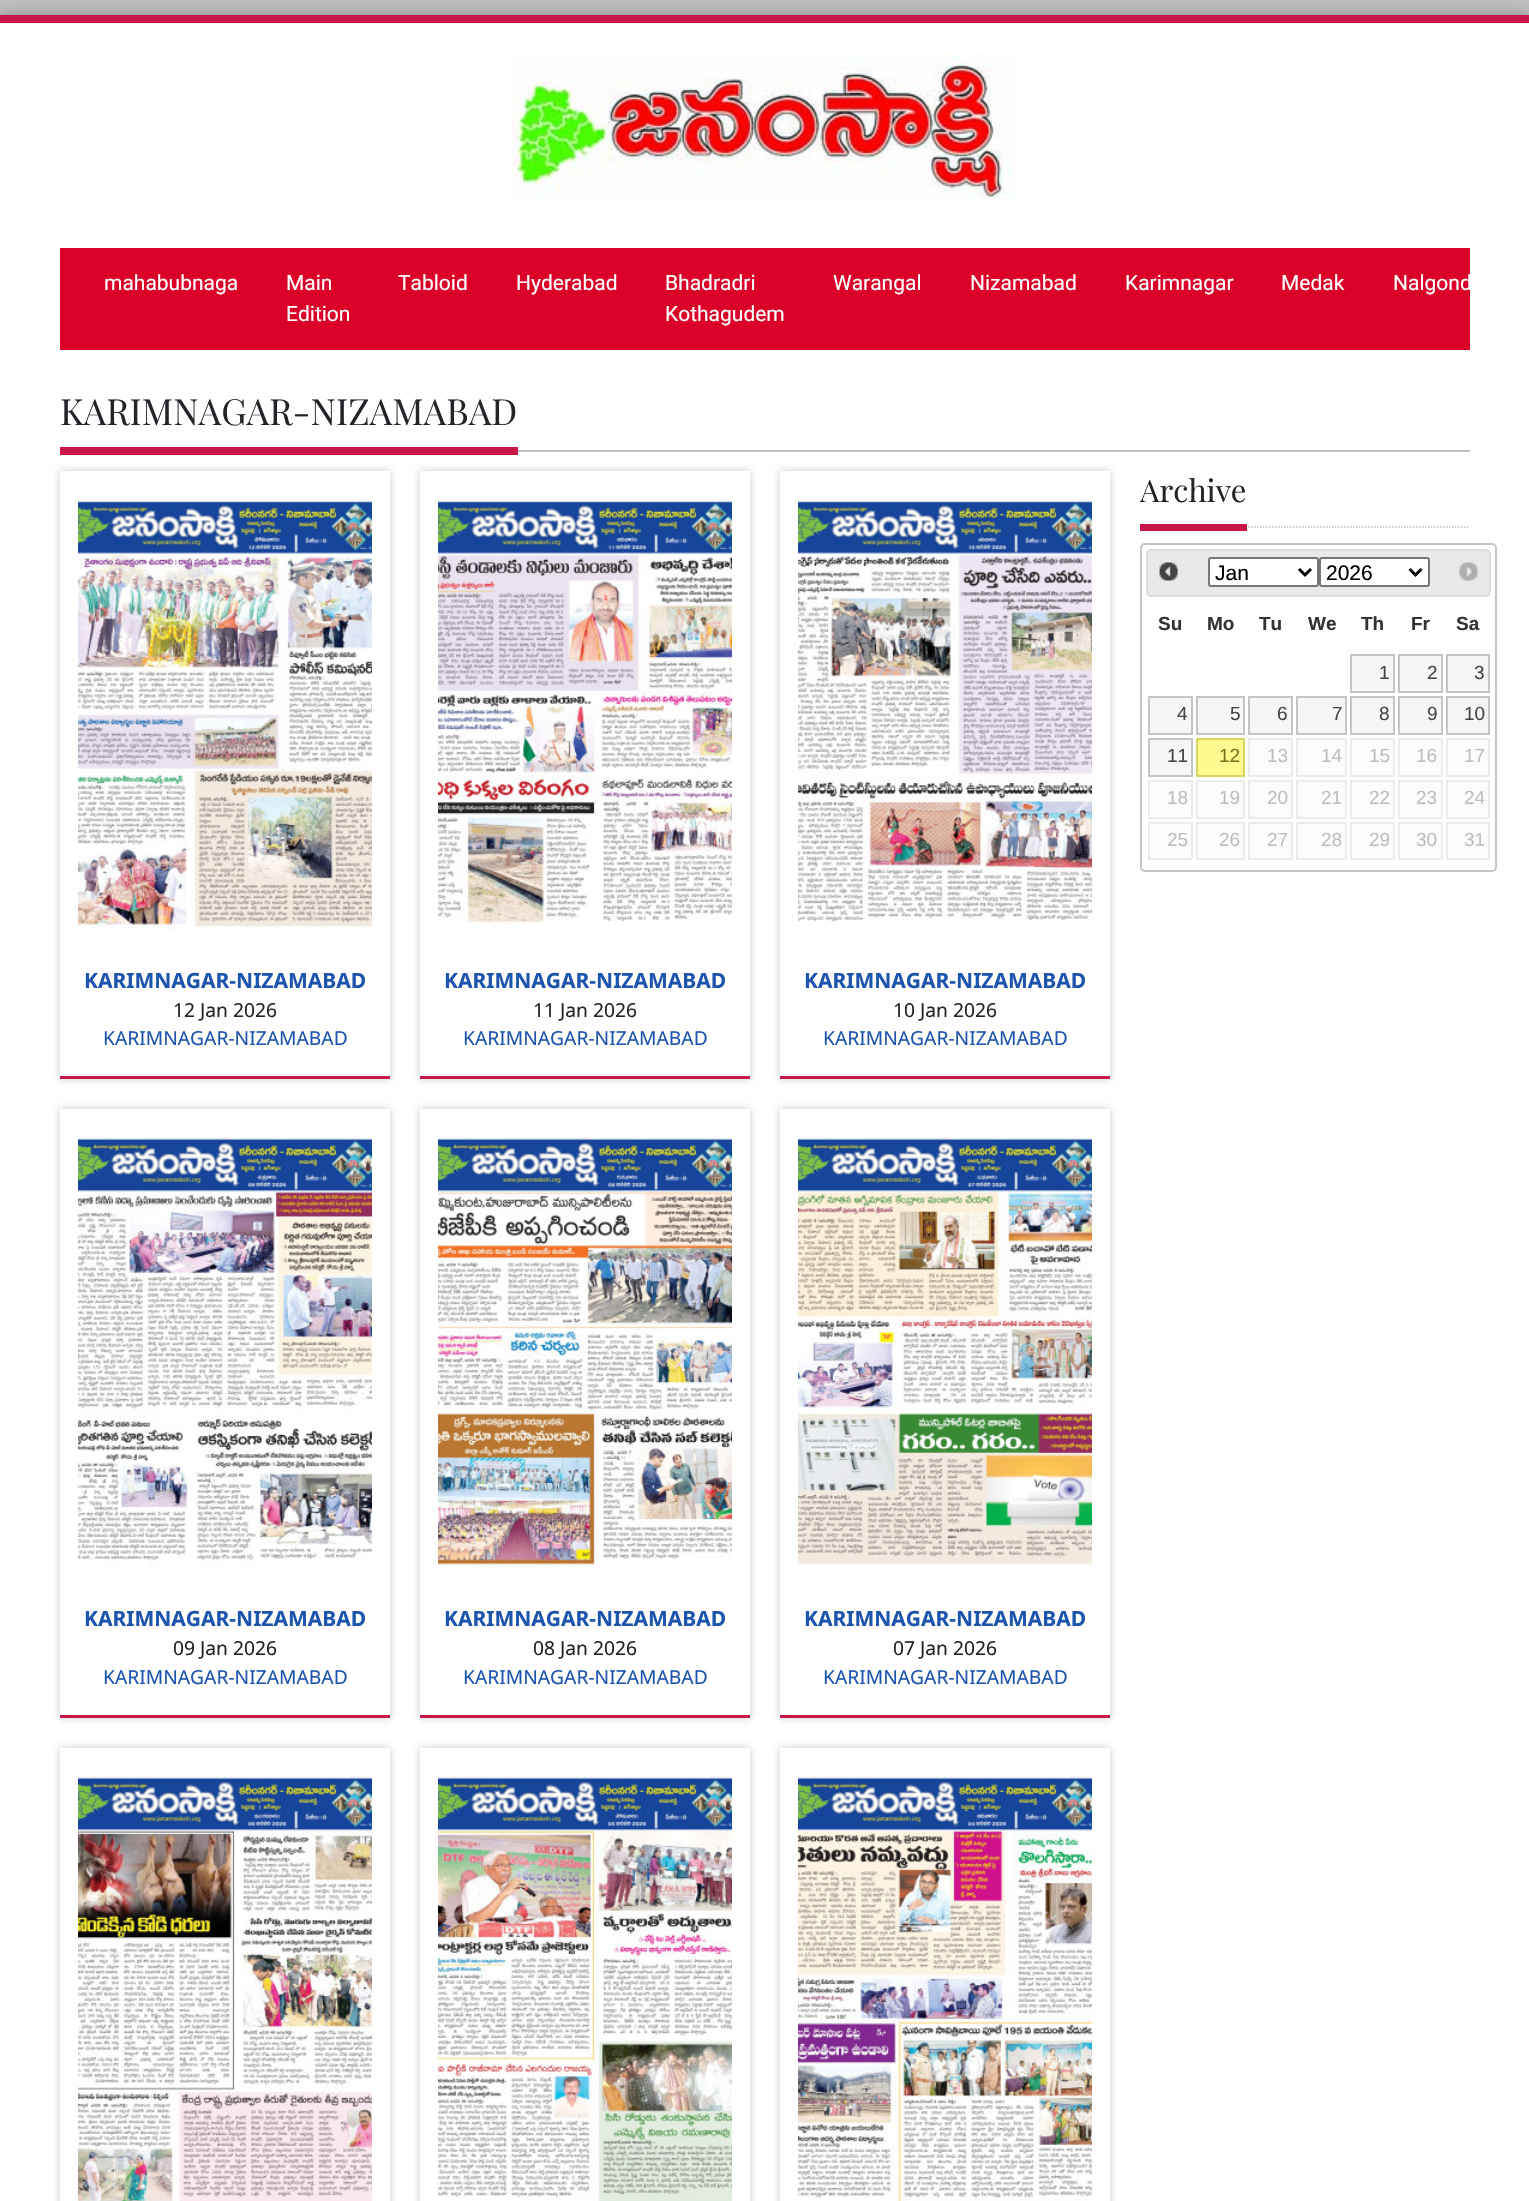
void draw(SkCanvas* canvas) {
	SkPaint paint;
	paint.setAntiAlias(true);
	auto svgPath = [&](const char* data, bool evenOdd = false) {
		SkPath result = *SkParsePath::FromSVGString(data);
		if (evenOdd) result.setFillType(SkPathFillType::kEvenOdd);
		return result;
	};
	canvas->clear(0xffc0c0c0);
	paint.setColor(0x4d000000);
	paint.setMaskFilter(SkMaskFilter::MakeBlur(kNormal_SkBlurStyle, 7.5));
	canvas->drawRect(SkRect::MakeXYWH(0, 15, 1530, 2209), paint);
	paint.setMaskFilter(nullptr);
	paint.setColor(0xffffffff);
	canvas->drawRect(SkRect::MakeXYWH(0, 23, 1529, 2178), paint);
	paint.setColor(0xffc61747);
	canvas->drawRect(SkRect::MakeXYWH(0, 15, 1529, 8), paint);
	canvas->drawImageRect(SkImages::DeferredFromEncodedData(SkData::MakeFromFileName("img1.png")), SkRect::MakeXYWH(511, 54, 505, 145), SkSamplingOptions());
	paint.setColor(0xffdb0028);
	canvas->drawRect(SkRect::MakeXYWH(60, 248, 1410, 102), paint);
	SkFont f1(fontMgr->matchFamilyStyle("Roboto", SkFontStyle::Normal()), 21);
	f1.setSubpixel(true);
	paint.setColor(0xffffffff);
	canvas->drawString("mahabubnaga", 104, 290, f1, paint);
	canvas->drawString("Main", 286, 290, f1, paint);
	canvas->drawString("Edition", 286, 321, f1, paint);
	canvas->drawString("Tabloid", 398, 290, f1, paint);
	canvas->drawString("Hyderabad", 516, 290, f1, paint);
	canvas->drawString("Bhadradri", 665, 290, f1, paint);
	canvas->drawString("Kothagudem", 665, 321, f1, paint);
	canvas->drawString("Warangal", 833, 290, f1, paint);
	canvas->drawString("Nizamabad", 970, 290, f1, paint);
	canvas->drawString("Karimnagar", 1125, 290, f1, paint);
	canvas->drawString("Medak", 1281, 290, f1, paint);
	canvas->drawString("Nalgond", 1393, 290, f1, paint);
	paint.setColor(0xffc0c0c0);
	canvas->drawRect(SkRect::MakeXYWH(518, 450, 952, 2), paint);
	paint.setColor(0xffc61747);
	canvas->drawRect(SkRect::MakeXYWH(60, 447, 458, 8), paint);
	SkFont f2(fontMgr->matchFamilyStyle("Playfair Display", SkFontStyle::Normal()), 36);
	f2.setSubpixel(true);
	paint.setColor(0xff212529);
	canvas->drawString("KARIMNAGAR-NIZAMABAD", 60, 425, f2, paint);
	paint.setStroke(true);
	paint.setStrokeWidth(1.5);
	paint.setColor(0xffc0c0c0);
	paint.setPathEffect(SkDashPathEffect::Make({{1.5f, 1.5f}}, 0));
	canvas->drawPath(svgPath("M1140 527H1470"), paint);
	paint.setPathEffect(nullptr);
	paint.setStroke(false);
	paint.setColor(0xffc61747);
	canvas->drawRect(SkRect::MakeXYWH(1140, 524, 107, 7), paint);
	SkFont f3(fontMgr->matchFamilyStyle("Playfair Display", SkFontStyle::Normal()), 31);
	f3.setSubpixel(true);
	paint.setColor(0xff212529);
	canvas->drawString("Archive", 1140, 502, f3, paint);
	paint.setStroke(true);
	paint.setStrokeWidth(2);
	paint.setColor(0xffc5c5c5);
	canvas->drawRoundRect(SkRect::MakeXYWH(1141, 544, 355, 327), 4, 4, paint);
	paint.setStroke(false);
	paint.setColor(0xffe9e9e9);
	canvas->drawRoundRect(SkRect::MakeXYWH(1147, 550, 343, 46), 4, 4, paint);
	paint.setStroke(true);
	paint.setColor(0xffdddddd);
	canvas->drawRoundRect(SkRect::MakeXYWH(1147, 550, 343, 46), 4, 4, paint);
	canvas->drawImageRect(SkImages::DeferredFromEncodedData(SkData::MakeFromFileName("img2.png")), SkRect::MakeXYWH(1159, 562, 19, 19), SkSamplingOptions());
	paint.setStroke(false);
	paint.setColor(0xffffffff);
	canvas->drawRoundRect(SkRect::MakeXYWH(1209, 558, 109, 28), 2, 2, paint);
	paint.setStroke(true);
	paint.setColor(0xff767676);
	canvas->drawRoundRect(SkRect::MakeXYWH(1209, 558, 109, 28), 2, 2, paint);
	paint.setStrokeWidth(3);
	paint.setColor(0xff000000);
	canvas->drawPath(svgPath("M1299 569L1305 575L1311 569"), paint);
	SkFont f4(fontMgr->matchFamilyStyle("Liberation Sans", SkFontStyle::Normal()), 21);
	f4.setSubpixel(true);
	paint.setStroke(false);
	canvas->drawString("Jan", 1215, 580, f4, paint);
	paint.setColor(0xffffffff);
	canvas->drawRoundRect(SkRect::MakeXYWH(1320, 558, 109, 28), 2, 2, paint);
	paint.setStroke(true);
	paint.setStrokeWidth(2);
	paint.setColor(0xff767676);
	canvas->drawRoundRect(SkRect::MakeXYWH(1320, 558, 109, 28), 2, 2, paint);
	paint.setStrokeWidth(3);
	paint.setColor(0xff000000);
	canvas->drawPath(svgPath("M1409.5 569L1415.5 575L1421.5 569"), paint);
	paint.setStroke(false);
	canvas->drawString("2026", 1326, 580, f4, paint);
	canvas->drawImageRect(SkImages::DeferredFromEncodedData(SkData::MakeFromFileName("img3.png")), SkRect::MakeXYWH(1459, 562, 19, 19), SkSamplingOptions());
	SkFont f5(fontMgr->matchFamilyStyle("Liberation Sans", SkFontStyle::Bold()), 19);
	f5.setSubpixel(true);
	paint.setColor(0xff333333);
	canvas->drawString("Su", 1158, 630, f5, paint);
	canvas->drawString("Mo", 1207, 630, f5, paint);
	canvas->drawString("Tu", 1259, 630, f5, paint);
	canvas->drawString("We", 1308, 630, f5, paint);
	canvas->drawString("Th", 1361, 630, f5, paint);
	canvas->drawString("Fr", 1411, 630, f5, paint);
	canvas->drawString("Sa", 1456, 630, f5, paint);
	paint.setColor(0xfff6f6f6);
	canvas->drawRect(SkRect::MakeXYWH(1351, 655, 43, 37), paint);
	paint.setStroke(true);
	paint.setStrokeWidth(2);
	paint.setColor(0xffc5c5c5);
	canvas->drawRect(SkRect::MakeXYWH(1351, 655, 43, 37), paint);
	SkFont f6(fontMgr->matchFamilyStyle("Liberation Sans", SkFontStyle::Normal()), 19);
	f6.setSubpixel(true);
	paint.setStroke(false);
	paint.setColor(0xff454545);
	canvas->drawString("1", 1379, 679, f6, paint);
	paint.setColor(0xfff6f6f6);
	canvas->drawRect(SkRect::MakeXYWH(1399, 655, 43, 37), paint);
	paint.setStroke(true);
	paint.setColor(0xffc5c5c5);
	canvas->drawRect(SkRect::MakeXYWH(1399, 655, 43, 37), paint);
	paint.setStroke(false);
	paint.setColor(0xff454545);
	canvas->drawString("2", 1427, 679, f6, paint);
	paint.setColor(0xfff6f6f6);
	canvas->drawRect(SkRect::MakeXYWH(1447, 655, 42, 37), paint);
	paint.setStroke(true);
	paint.setColor(0xffc5c5c5);
	canvas->drawRect(SkRect::MakeXYWH(1447, 655, 42, 37), paint);
	paint.setStroke(false);
	paint.setColor(0xff454545);
	canvas->drawString("3", 1474, 679, f6, paint);
	paint.setColor(0xfff6f6f6);
	canvas->drawRect(SkRect::MakeXYWH(1149, 697, 43, 37), paint);
	paint.setStroke(true);
	paint.setColor(0xffc5c5c5);
	canvas->drawRect(SkRect::MakeXYWH(1149, 697, 43, 37), paint);
	paint.setStroke(false);
	paint.setColor(0xff454545);
	canvas->drawString("4", 1177, 720, f6, paint);
	paint.setColor(0xfff6f6f6);
	canvas->drawRect(SkRect::MakeXYWH(1197, 697, 47, 37), paint);
	paint.setStroke(true);
	paint.setColor(0xffc5c5c5);
	canvas->drawRect(SkRect::MakeXYWH(1197, 697, 47, 37), paint);
	paint.setStroke(false);
	paint.setColor(0xff454545);
	canvas->drawString("5", 1230, 720, f6, paint);
	paint.setColor(0xfff6f6f6);
	canvas->drawRect(SkRect::MakeXYWH(1249, 697, 43, 37), paint);
	paint.setStroke(true);
	paint.setColor(0xffc5c5c5);
	canvas->drawRect(SkRect::MakeXYWH(1249, 697, 43, 37), paint);
	paint.setStroke(false);
	paint.setColor(0xff454545);
	canvas->drawString("6", 1277, 720, f6, paint);
	paint.setColor(0xfff6f6f6);
	canvas->drawRect(SkRect::MakeXYWH(1297, 697, 49, 37), paint);
	paint.setStroke(true);
	paint.setColor(0xffc5c5c5);
	canvas->drawRect(SkRect::MakeXYWH(1297, 697, 49, 37), paint);
	paint.setStroke(false);
	paint.setColor(0xff454545);
	canvas->drawString("7", 1332, 720, f6, paint);
	paint.setColor(0xfff6f6f6);
	canvas->drawRect(SkRect::MakeXYWH(1351, 697, 43, 37), paint);
	paint.setStroke(true);
	paint.setColor(0xffc5c5c5);
	canvas->drawRect(SkRect::MakeXYWH(1351, 697, 43, 37), paint);
	paint.setStroke(false);
	paint.setColor(0xff454545);
	canvas->drawString("8", 1379, 720, f6, paint);
	paint.setColor(0xfff6f6f6);
	canvas->drawRect(SkRect::MakeXYWH(1399, 697, 43, 37), paint);
	paint.setStroke(true);
	paint.setColor(0xffc5c5c5);
	canvas->drawRect(SkRect::MakeXYWH(1399, 697, 43, 37), paint);
	paint.setStroke(false);
	paint.setColor(0xff454545);
	canvas->drawString("9", 1427, 720, f6, paint);
	paint.setColor(0xfff6f6f6);
	canvas->drawRect(SkRect::MakeXYWH(1447, 697, 42, 37), paint);
	paint.setStroke(true);
	paint.setColor(0xffc5c5c5);
	canvas->drawRect(SkRect::MakeXYWH(1447, 697, 42, 37), paint);
	paint.setStroke(false);
	paint.setColor(0xff454545);
	canvas->drawString("10", 1464, 720, f6, paint);
	paint.setColor(0xfff6f6f6);
	canvas->drawRect(SkRect::MakeXYWH(1149, 739, 43, 37), paint);
	paint.setStroke(true);
	paint.setColor(0xffc5c5c5);
	canvas->drawRect(SkRect::MakeXYWH(1149, 739, 43, 37), paint);
	paint.setStroke(false);
	paint.setColor(0xff454545);
	canvas->drawString("11", 1167, 762, f6, paint);
	paint.setColor(0xfffffa90);
	canvas->drawRect(SkRect::MakeXYWH(1197, 739, 47, 37), paint);
	paint.setStroke(true);
	paint.setColor(0xffdad55e);
	canvas->drawRect(SkRect::MakeXYWH(1197, 739, 47, 37), paint);
	paint.setStroke(false);
	paint.setColor(0xff777620);
	canvas->drawString("12", 1219, 762, f6, paint);
	paint.setColor(0xfffcfcfc);
	canvas->drawRect(SkRect::MakeXYWH(1249, 739, 43, 37), paint);
	paint.setStroke(true);
	paint.setColor(0xffebebeb);
	canvas->drawRect(SkRect::MakeXYWH(1249, 739, 43, 37), paint);
	paint.setStroke(false);
	paint.setColor(0xffbebebe);
	canvas->drawString("13", 1267, 762, f6, paint);
	paint.setColor(0xfffcfcfc);
	canvas->drawRect(SkRect::MakeXYWH(1297, 739, 49, 37), paint);
	paint.setStroke(true);
	paint.setColor(0xffebebeb);
	canvas->drawRect(SkRect::MakeXYWH(1297, 739, 49, 37), paint);
	paint.setStroke(false);
	paint.setColor(0xffbebebe);
	canvas->drawString("14", 1321, 762, f6, paint);
	paint.setColor(0xfffcfcfc);
	canvas->drawRect(SkRect::MakeXYWH(1351, 739, 43, 37), paint);
	paint.setStroke(true);
	paint.setColor(0xffebebeb);
	canvas->drawRect(SkRect::MakeXYWH(1351, 739, 43, 37), paint);
	paint.setStroke(false);
	paint.setColor(0xffbebebe);
	canvas->drawString("15", 1369, 762, f6, paint);
	paint.setColor(0xfffcfcfc);
	canvas->drawRect(SkRect::MakeXYWH(1399, 739, 43, 37), paint);
	paint.setStroke(true);
	paint.setColor(0xffebebeb);
	canvas->drawRect(SkRect::MakeXYWH(1399, 739, 43, 37), paint);
	paint.setStroke(false);
	paint.setColor(0xffbebebe);
	canvas->drawString("16", 1416, 762, f6, paint);
	paint.setColor(0xfffcfcfc);
	canvas->drawRect(SkRect::MakeXYWH(1447, 739, 42, 37), paint);
	paint.setStroke(true);
	paint.setColor(0xffebebeb);
	canvas->drawRect(SkRect::MakeXYWH(1447, 739, 42, 37), paint);
	paint.setStroke(false);
	paint.setColor(0xffbebebe);
	canvas->drawString("17", 1464, 762, f6, paint);
	paint.setColor(0xfffcfcfc);
	canvas->drawRect(SkRect::MakeXYWH(1149, 781, 43, 37), paint);
	paint.setStroke(true);
	paint.setColor(0xffebebeb);
	canvas->drawRect(SkRect::MakeXYWH(1149, 781, 43, 37), paint);
	paint.setStroke(false);
	paint.setColor(0xffbebebe);
	canvas->drawString("18", 1167, 804, f6, paint);
	paint.setColor(0xfffcfcfc);
	canvas->drawRect(SkRect::MakeXYWH(1197, 781, 47, 37), paint);
	paint.setStroke(true);
	paint.setColor(0xffebebeb);
	canvas->drawRect(SkRect::MakeXYWH(1197, 781, 47, 37), paint);
	paint.setStroke(false);
	paint.setColor(0xffbebebe);
	canvas->drawString("19", 1219, 804, f6, paint);
	paint.setColor(0xfffcfcfc);
	canvas->drawRect(SkRect::MakeXYWH(1249, 781, 43, 37), paint);
	paint.setStroke(true);
	paint.setColor(0xffebebeb);
	canvas->drawRect(SkRect::MakeXYWH(1249, 781, 43, 37), paint);
	paint.setStroke(false);
	paint.setColor(0xffbebebe);
	canvas->drawString("20", 1267, 804, f6, paint);
	paint.setColor(0xfffcfcfc);
	canvas->drawRect(SkRect::MakeXYWH(1297, 781, 49, 37), paint);
	paint.setStroke(true);
	paint.setColor(0xffebebeb);
	canvas->drawRect(SkRect::MakeXYWH(1297, 781, 49, 37), paint);
	paint.setStroke(false);
	paint.setColor(0xffbebebe);
	canvas->drawString("21", 1321, 804, f6, paint);
	paint.setColor(0xfffcfcfc);
	canvas->drawRect(SkRect::MakeXYWH(1351, 781, 43, 37), paint);
	paint.setStroke(true);
	paint.setColor(0xffebebeb);
	canvas->drawRect(SkRect::MakeXYWH(1351, 781, 43, 37), paint);
	paint.setStroke(false);
	paint.setColor(0xffbebebe);
	canvas->drawString("22", 1369, 804, f6, paint);
	paint.setColor(0xfffcfcfc);
	canvas->drawRect(SkRect::MakeXYWH(1399, 781, 43, 37), paint);
	paint.setStroke(true);
	paint.setColor(0xffebebeb);
	canvas->drawRect(SkRect::MakeXYWH(1399, 781, 43, 37), paint);
	paint.setStroke(false);
	paint.setColor(0xffbebebe);
	canvas->drawString("23", 1416, 804, f6, paint);
	paint.setColor(0xfffcfcfc);
	canvas->drawRect(SkRect::MakeXYWH(1447, 781, 42, 37), paint);
	paint.setStroke(true);
	paint.setColor(0xffebebeb);
	canvas->drawRect(SkRect::MakeXYWH(1447, 781, 42, 37), paint);
	paint.setStroke(false);
	paint.setColor(0xffbebebe);
	canvas->drawString("24", 1464, 804, f6, paint);
	paint.setColor(0xfffcfcfc);
	canvas->drawRect(SkRect::MakeXYWH(1149, 823, 43, 36), paint);
	paint.setStroke(true);
	paint.setColor(0xffebebeb);
	canvas->drawRect(SkRect::MakeXYWH(1149, 823, 43, 36), paint);
	paint.setStroke(false);
	paint.setColor(0xffbebebe);
	canvas->drawString("25", 1167, 846, f6, paint);
	paint.setColor(0xfffcfcfc);
	canvas->drawRect(SkRect::MakeXYWH(1197, 823, 47, 36), paint);
	paint.setStroke(true);
	paint.setColor(0xffebebeb);
	canvas->drawRect(SkRect::MakeXYWH(1197, 823, 47, 36), paint);
	paint.setStroke(false);
	paint.setColor(0xffbebebe);
	canvas->drawString("26", 1219, 846, f6, paint);
	paint.setColor(0xfffcfcfc);
	canvas->drawRect(SkRect::MakeXYWH(1249, 823, 43, 36), paint);
	paint.setStroke(true);
	paint.setColor(0xffebebeb);
	canvas->drawRect(SkRect::MakeXYWH(1249, 823, 43, 36), paint);
	paint.setStroke(false);
	paint.setColor(0xffbebebe);
	canvas->drawString("27", 1267, 846, f6, paint);
	paint.setColor(0xfffcfcfc);
	canvas->drawRect(SkRect::MakeXYWH(1297, 823, 49, 36), paint);
	paint.setStroke(true);
	paint.setColor(0xffebebeb);
	canvas->drawRect(SkRect::MakeXYWH(1297, 823, 49, 36), paint);
	paint.setStroke(false);
	paint.setColor(0xffbebebe);
	canvas->drawString("28", 1321, 846, f6, paint);
	paint.setColor(0xfffcfcfc);
	canvas->drawRect(SkRect::MakeXYWH(1351, 823, 43, 36), paint);
	paint.setStroke(true);
	paint.setColor(0xffebebeb);
	canvas->drawRect(SkRect::MakeXYWH(1351, 823, 43, 36), paint);
	paint.setStroke(false);
	paint.setColor(0xffbebebe);
	canvas->drawString("29", 1369, 846, f6, paint);
	paint.setColor(0xfffcfcfc);
	canvas->drawRect(SkRect::MakeXYWH(1399, 823, 43, 36), paint);
	paint.setStroke(true);
	paint.setColor(0xffebebeb);
	canvas->drawRect(SkRect::MakeXYWH(1399, 823, 43, 36), paint);
	paint.setStroke(false);
	paint.setColor(0xffbebebe);
	canvas->drawString("30", 1416, 846, f6, paint);
	paint.setColor(0xfffcfcfc);
	canvas->drawRect(SkRect::MakeXYWH(1447, 823, 42, 36), paint);
	paint.setStroke(true);
	paint.setColor(0xffebebeb);
	canvas->drawRect(SkRect::MakeXYWH(1447, 823, 42, 36), paint);
	paint.setStroke(false);
	paint.setColor(0xffbebebe);
	canvas->drawString("31", 1464, 846, f6, paint);
	canvas->save();
	canvas->clipPath(svgPath("M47 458H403V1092H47ZM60 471H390V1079H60Z", true), true);
	paint.setColor(0x33000000);
	paint.setMaskFilter(SkMaskFilter::MakeBlur(kNormal_SkBlurStyle, 4));
	canvas->drawRect(SkRect::MakeXYWH(60, 471, 330, 608), paint);
	paint.setMaskFilter(nullptr);
	canvas->restore();
	paint.setColor(0xffc61747);
	canvas->drawRect(SkRect::MakeXYWH(60, 1076, 330, 3), paint);
	canvas->drawImageRect(SkImages::DeferredFromEncodedData(SkData::MakeFromFileName("img4.png")), SkRect::MakeXYWH(78, 498, 294, 433), SkSamplingOptions());
	SkFont f7(fontMgr->matchFamilyStyle("Noto Sans", SkFontStyle::Bold()), 21);
	f7.setSubpixel(true);
	paint.setColor(0xff1c54ae);
	canvas->drawString("KARIMNAGAR-NIZAMABAD", 84, 988, f7, paint);
	SkFont f8(fontMgr->matchFamilyStyle("Noto Sans", SkFontStyle::Normal()), 19.25);
	f8.setSubpixel(true);
	paint.setColor(0xff212529);
	canvas->drawString("12 Jan 2026", 173, 1017, f8, paint);
	paint.setColor(0xff1c54ae);
	canvas->drawString("KARIMNAGAR-NIZAMABAD", 103, 1045, f8, paint);
	canvas->save();
	canvas->clipPath(svgPath("M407 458H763V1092H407ZM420 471H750V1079H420Z", true), true);
	paint.setColor(0x33000000);
	paint.setMaskFilter(SkMaskFilter::MakeBlur(kNormal_SkBlurStyle, 4));
	canvas->drawRect(SkRect::MakeXYWH(420, 471, 330, 608), paint);
	paint.setMaskFilter(nullptr);
	canvas->restore();
	paint.setColor(0xffc61747);
	canvas->drawRect(SkRect::MakeXYWH(420, 1076, 330, 3), paint);
	canvas->drawImageRect(SkImages::DeferredFromEncodedData(SkData::MakeFromFileName("img5.png")), SkRect::MakeXYWH(438, 498, 294, 425), SkSamplingOptions());
	paint.setColor(0xff1c54ae);
	canvas->drawString("KARIMNAGAR-NIZAMABAD", 444, 988, f7, paint);
	paint.setColor(0xff212529);
	canvas->drawString("11 Jan 2026", 533, 1017, f8, paint);
	paint.setColor(0xff1c54ae);
	canvas->drawString("KARIMNAGAR-NIZAMABAD", 463, 1045, f8, paint);
	canvas->save();
	canvas->clipPath(svgPath("M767 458H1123V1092H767ZM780 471H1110V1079H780Z", true), true);
	paint.setColor(0x33000000);
	paint.setMaskFilter(SkMaskFilter::MakeBlur(kNormal_SkBlurStyle, 4));
	canvas->drawRect(SkRect::MakeXYWH(780, 471, 330, 608), paint);
	paint.setMaskFilter(nullptr);
	canvas->restore();
	paint.setColor(0xffc61747);
	canvas->drawRect(SkRect::MakeXYWH(780, 1076, 330, 3), paint);
	canvas->drawImageRect(SkImages::DeferredFromEncodedData(SkData::MakeFromFileName("img6.png")), SkRect::MakeXYWH(798, 498, 294, 424), SkSamplingOptions());
	paint.setColor(0xff1c54ae);
	canvas->drawString("KARIMNAGAR-NIZAMABAD", 804, 988, f7, paint);
	paint.setColor(0xff212529);
	canvas->drawString("10 Jan 2026", 893, 1017, f8, paint);
	paint.setColor(0xff1c54ae);
	canvas->drawString("KARIMNAGAR-NIZAMABAD", 823, 1045, f8, paint);
	canvas->save();
	canvas->clipPath(svgPath("M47 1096H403V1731H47ZM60 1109H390V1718H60Z", true), true);
	paint.setColor(0x33000000);
	paint.setMaskFilter(SkMaskFilter::MakeBlur(kNormal_SkBlurStyle, 4));
	canvas->drawRect(SkRect::MakeXYWH(60, 1109, 330, 609), paint);
	paint.setMaskFilter(nullptr);
	canvas->restore();
	paint.setColor(0xffc61747);
	canvas->drawRect(SkRect::MakeXYWH(60, 1715, 330, 3), paint);
	canvas->drawImageRect(SkImages::DeferredFromEncodedData(SkData::MakeFromFileName("img7.png")), SkRect::MakeXYWH(78, 1136, 294, 432), SkSamplingOptions());
	paint.setColor(0xff1c54ae);
	canvas->drawString("KARIMNAGAR-NIZAMABAD", 84, 1626, f7, paint);
	paint.setColor(0xff212529);
	canvas->drawString("09 Jan 2026", 173, 1655, f8, paint);
	paint.setColor(0xff1c54ae);
	canvas->drawString("KARIMNAGAR-NIZAMABAD", 103, 1684, f8, paint);
	canvas->save();
	canvas->clipPath(svgPath("M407 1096H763V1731H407ZM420 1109H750V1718H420Z", true), true);
	paint.setColor(0x33000000);
	paint.setMaskFilter(SkMaskFilter::MakeBlur(kNormal_SkBlurStyle, 4));
	canvas->drawRect(SkRect::MakeXYWH(420, 1109, 330, 609), paint);
	paint.setMaskFilter(nullptr);
	canvas->restore();
	paint.setColor(0xffc61747);
	canvas->drawRect(SkRect::MakeXYWH(420, 1715, 330, 3), paint);
	canvas->drawImageRect(SkImages::DeferredFromEncodedData(SkData::MakeFromFileName("img8.png")), SkRect::MakeXYWH(438, 1136, 294, 432), SkSamplingOptions());
	paint.setColor(0xff1c54ae);
	canvas->drawString("KARIMNAGAR-NIZAMABAD", 444, 1626, f7, paint);
	paint.setColor(0xff212529);
	canvas->drawString("08 Jan 2026", 533, 1655, f8, paint);
	paint.setColor(0xff1c54ae);
	canvas->drawString("KARIMNAGAR-NIZAMABAD", 463, 1684, f8, paint);
	canvas->save();
	canvas->clipPath(svgPath("M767 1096H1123V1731H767ZM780 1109H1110V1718H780Z", true), true);
	paint.setColor(0x33000000);
	paint.setMaskFilter(SkMaskFilter::MakeBlur(kNormal_SkBlurStyle, 4));
	canvas->drawRect(SkRect::MakeXYWH(780, 1109, 330, 609), paint);
	paint.setMaskFilter(nullptr);
	canvas->restore();
	paint.setColor(0xffc61747);
	canvas->drawRect(SkRect::MakeXYWH(780, 1715, 330, 3), paint);
	canvas->drawImageRect(SkImages::DeferredFromEncodedData(SkData::MakeFromFileName("img9.png")), SkRect::MakeXYWH(798, 1136, 294, 429), SkSamplingOptions());
	paint.setColor(0xff1c54ae);
	canvas->drawString("KARIMNAGAR-NIZAMABAD", 804, 1626, f7, paint);
	paint.setColor(0xff212529);
	canvas->drawString("07 Jan 2026", 893, 1655, f8, paint);
	paint.setColor(0xff1c54ae);
	canvas->drawString("KARIMNAGAR-NIZAMABAD", 823, 1684, f8, paint);
	canvas->save();
	canvas->clipPath(svgPath("M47 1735H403V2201H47ZM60 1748H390V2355H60Z", true), true);
	paint.setColor(0x33000000);
	paint.setMaskFilter(SkMaskFilter::MakeBlur(kNormal_SkBlurStyle, 4));
	canvas->drawRect(SkRect::MakeXYWH(60, 1748, 330, 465), paint);
	paint.setMaskFilter(nullptr);
	canvas->restore();
	canvas->drawImageRect(SkImages::DeferredFromEncodedData(SkData::MakeFromFileName("img10.png")), SkRect::MakeXYWH(78, 1775, 294, 426), SkSamplingOptions());
	canvas->save();
	canvas->clipPath(svgPath("M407 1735H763V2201H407ZM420 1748H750V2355H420Z", true), true);
	paint.setMaskFilter(SkMaskFilter::MakeBlur(kNormal_SkBlurStyle, 4));
	canvas->drawRect(SkRect::MakeXYWH(420, 1748, 330, 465), paint);
	paint.setMaskFilter(nullptr);
	canvas->restore();
	canvas->drawImageRect(SkImages::DeferredFromEncodedData(SkData::MakeFromFileName("img11.png")), SkRect::MakeXYWH(438, 1775, 294, 426), SkSamplingOptions());
	canvas->save();
	canvas->clipPath(svgPath("M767 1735H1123V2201H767ZM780 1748H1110V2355H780Z", true), true);
	paint.setMaskFilter(SkMaskFilter::MakeBlur(kNormal_SkBlurStyle, 4));
	canvas->drawRect(SkRect::MakeXYWH(780, 1748, 330, 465), paint);
	paint.setMaskFilter(nullptr);
	canvas->restore();
	canvas->drawImageRect(SkImages::DeferredFromEncodedData(SkData::MakeFromFileName("img12.png")), SkRect::MakeXYWH(798, 1775, 294, 426), SkSamplingOptions());
}
